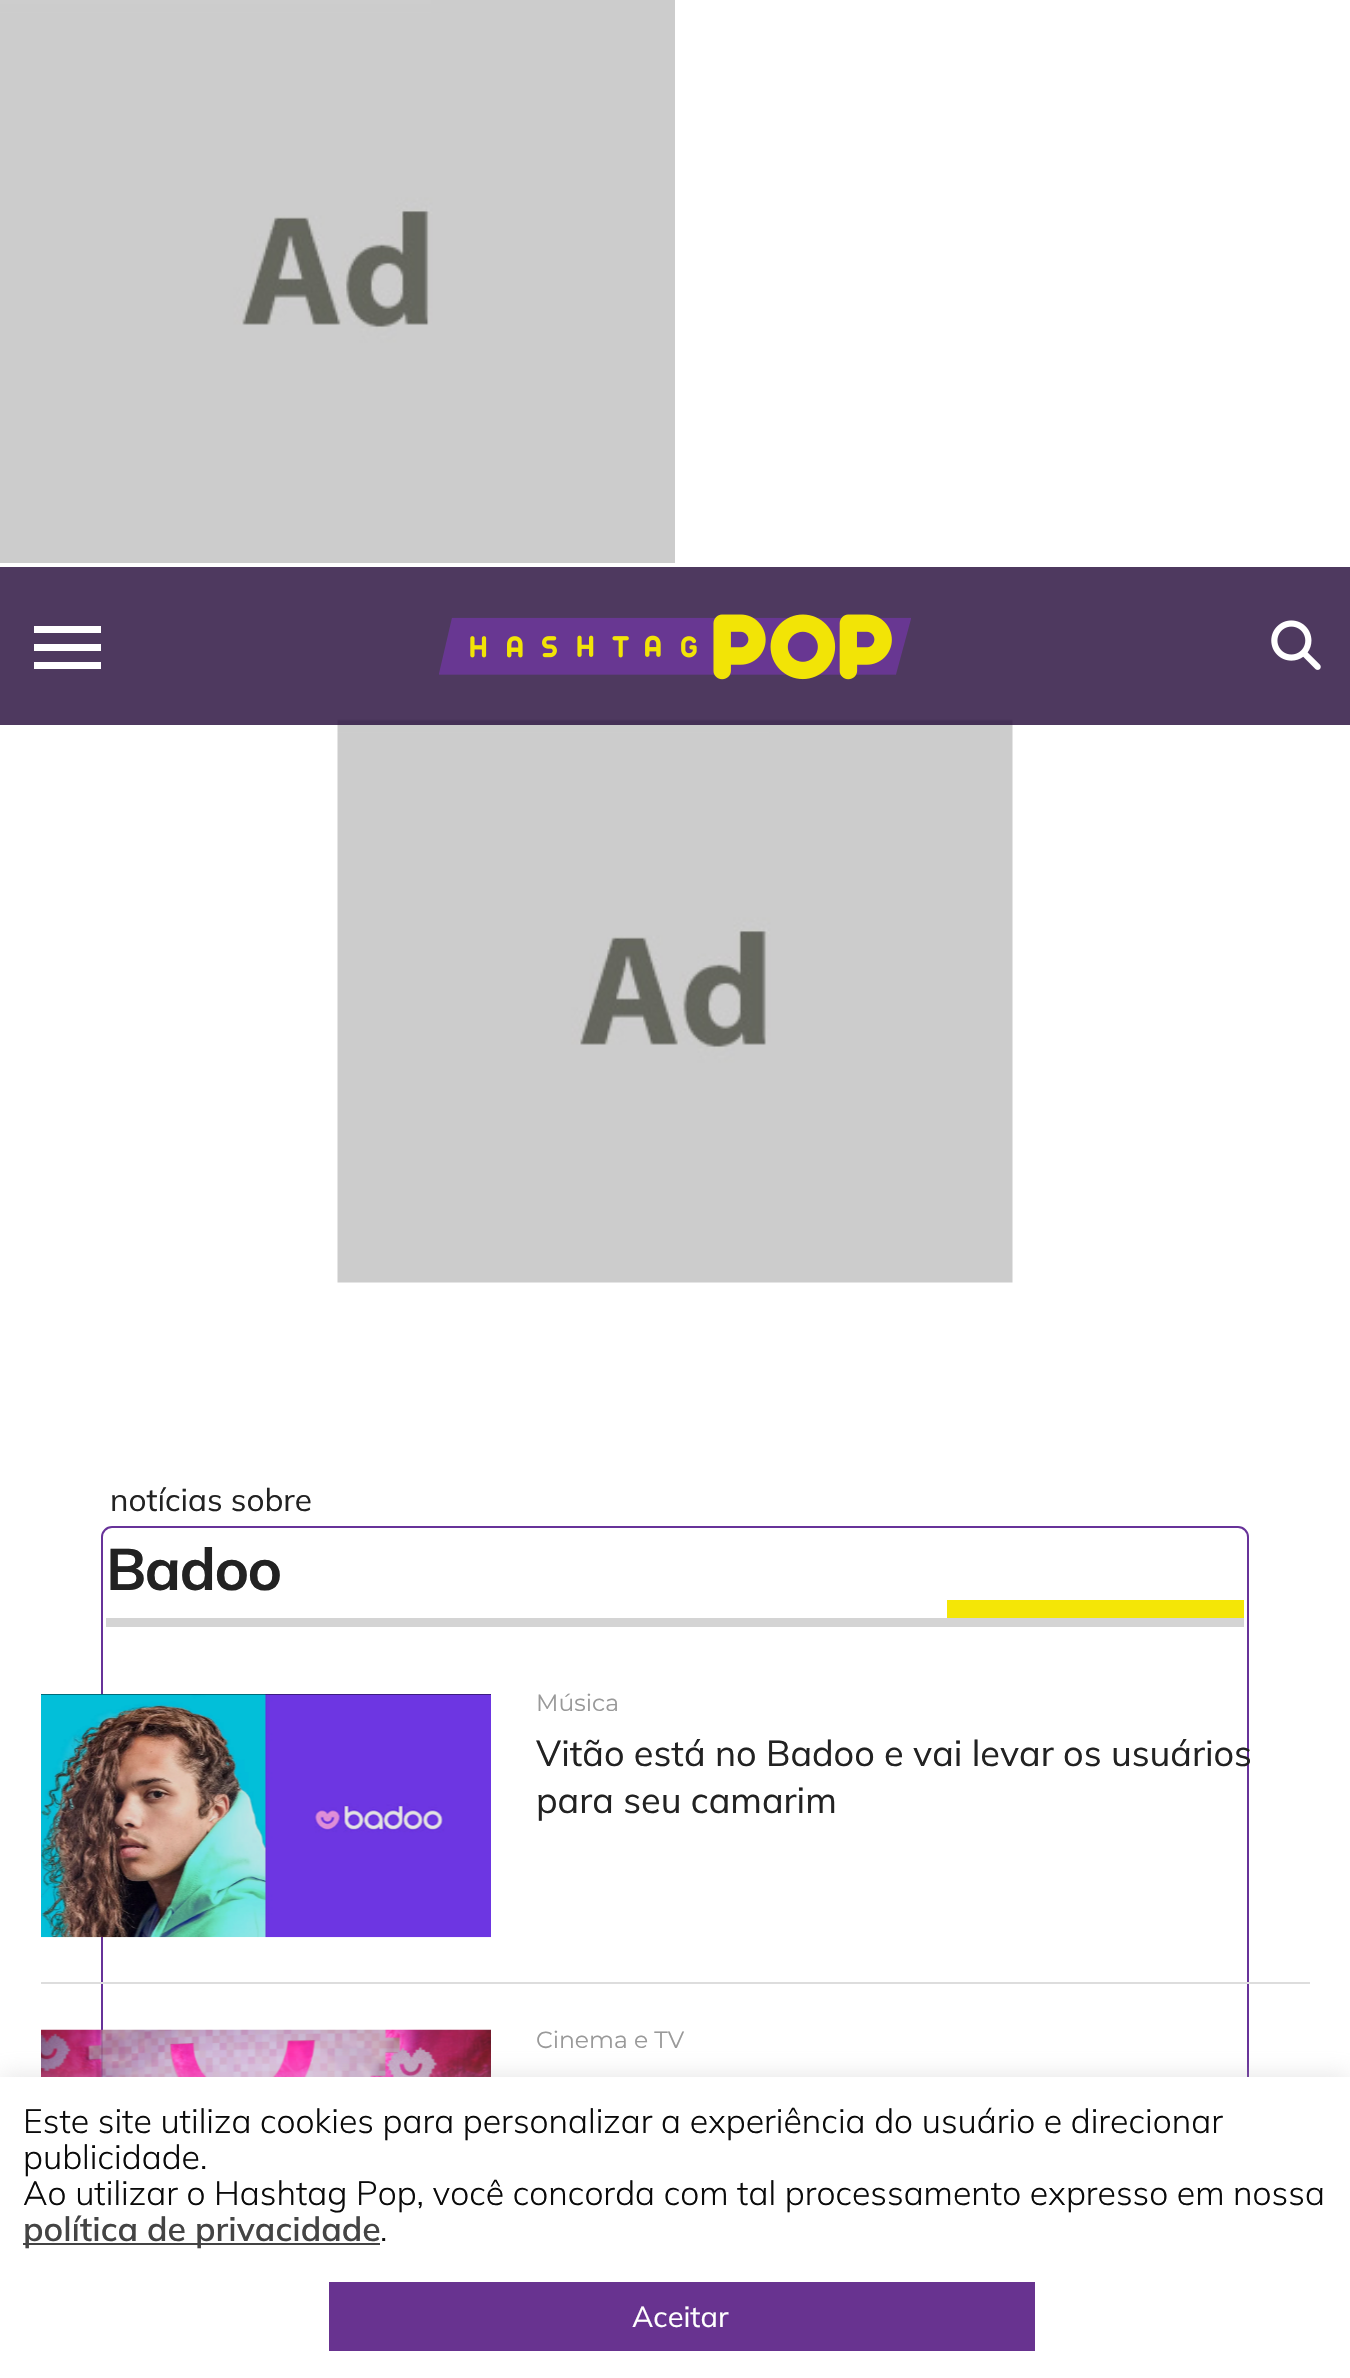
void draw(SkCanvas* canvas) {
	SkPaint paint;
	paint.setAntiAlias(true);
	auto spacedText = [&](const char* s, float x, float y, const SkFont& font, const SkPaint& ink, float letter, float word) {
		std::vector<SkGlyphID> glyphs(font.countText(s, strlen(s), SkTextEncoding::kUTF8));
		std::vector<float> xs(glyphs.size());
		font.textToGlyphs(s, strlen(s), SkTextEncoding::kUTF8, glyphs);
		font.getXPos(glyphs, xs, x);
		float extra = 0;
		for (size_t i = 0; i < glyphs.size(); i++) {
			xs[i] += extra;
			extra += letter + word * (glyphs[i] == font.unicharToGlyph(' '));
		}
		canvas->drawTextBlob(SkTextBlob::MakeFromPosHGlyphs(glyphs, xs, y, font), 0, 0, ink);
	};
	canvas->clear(0xffffffff);
	canvas->drawImageRect(SkImages::DeferredFromEncodedData(SkData::MakeFromFileName("img1.png")), SkRect::MakeXYWH(0, 0, 675, 563), SkSamplingOptions());
	canvas->drawImageRect(SkImages::DeferredFromEncodedData(SkData::MakeFromFileName("img4.png")), SkRect::MakeXYWH(337, 719, 676, 564), SkSamplingOptions());
	paint.setColor(0xd1270d3c);
	canvas->drawRect(SkRect::MakeXYWH(0, 567, 1350, 158), paint);
	canvas->drawImageRect(SkImages::DeferredFromEncodedData(SkData::MakeFromFileName("img2.png")), SkRect::MakeXYWH(439, 614, 472, 66), SkSamplingOptions());
	paint.setColor(0xffffffff);
	canvas->drawRect(SkRect::MakeXYWH(34, 626, 67, 7), paint);
	canvas->drawRect(SkRect::MakeXYWH(34, 644, 67, 7), paint);
	canvas->drawRect(SkRect::MakeXYWH(34, 662, 67, 7), paint);
	canvas->drawImageRect(SkImages::DeferredFromEncodedData(SkData::MakeFromFileName("img3.png")), SkRect::MakeXYWH(1271, 620, 50, 50), SkSamplingOptions());
	paint.setStroke(true);
	paint.setStrokeWidth(2);
	paint.setColor(0xff673299);
	canvas->drawRoundRect(SkRect::MakeXYWH(102, 1527, 1146, 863), 10, 10, paint);
	paint.setStroke(false);
	paint.setColor(0xffd4d4d4);
	canvas->drawRect(SkRect::MakeXYWH(106, 1618, 1138, 9), paint);
	SkFont f1(fontMgr->matchFamilyStyle("Mulish", SkFontStyle::Normal()), 31.5);
	f1.setSubpixel(true);
	paint.setColor(0xff222222);
	canvas->drawString("notícias sobre", 110, 1511, f1, paint);
	SkFont f2(fontMgr->matchFamilyStyle("Mulish", SkFontStyle::Bold()), 58.5);
	f2.setSubpixel(true);
	spacedText("Badoo", 106, 1590, f2, paint, -1.5, 0);
	paint.setColor(0xfff4e606);
	canvas->drawRect(SkRect::MakeXYWH(947, 1600, 297, 18), paint);
	paint.setColor(0xff000000);
	canvas->drawRect(SkRect::MakeXYWH(41, 1694, 450, 243), paint);
	canvas->drawImageRect(SkImages::DeferredFromEncodedData(SkData::MakeFromFileName("img5.png")), SkRect::MakeXYWH(41, 1694, 450, 244), SkSamplingOptions());
	SkFont f3(fontMgr->matchFamilyStyle("Montserrat", SkFontStyle::Normal()), 23.5);
	f3.setSubpixel(true);
	paint.setColor(0xff999999);
	canvas->drawString("Música", 536, 1711, f3, paint);
	SkFont f4(fontMgr->matchFamilyStyle("Mulish", SkFontStyle::Normal()), 36);
	f4.setSubpixel(true);
	paint.setColor(0xff222222);
	canvas->drawString("Vitão está no Badoo e vai levar os usuários", 536, 1766, f4, paint);
	canvas->drawString("para seu camarim", 536, 1813, f4, paint);
	paint.setColor(0xffdddddd);
	canvas->drawRect(SkRect::MakeXYWH(41, 1982, 1269, 2), paint);
	canvas->drawImageRect(SkImages::DeferredFromEncodedData(SkData::MakeFromFileName("img6.png")), SkRect::MakeXYWH(41, 2029, 450, 48), SkSamplingOptions());
	paint.setColor(0xff999999);
	canvas->drawString("Cinema e TV", 536, 2048, f3, paint);
	paint.setColor(0x4dacabab);
	paint.setMaskFilter(SkMaskFilter::MakeBlur(kNormal_SkBlurStyle, 11));
	canvas->drawRect(SkRect::MakeXYWH(0, 2075, 1350, 301), paint);
	paint.setMaskFilter(nullptr);
	paint.setColor(0xffffffff);
	canvas->drawRect(SkRect::MakeXYWH(0, 2077, 1350, 301), paint);
	SkFont f5(fontMgr->matchFamilyStyle("Mulish", SkFontStyle(300, SkFontStyle::kNormal_Width, SkFontStyle::kUpright_Slant)), 33.75);
	f5.setSubpixel(true);
	paint.setColor(0xff0a0a0a);
	canvas->drawString("Este site utiliza cookies para personalizar a experiência do usuário e direcionar", 23, 2133, f5, paint);
	canvas->drawString("publicidade.", 23, 2169, f5, paint);
	canvas->drawString("Ao utilizar o Hashtag Pop, você concorda com tal processamento expresso em nossa", 23, 2205, f5, paint);
	paint.setColor(0xff444444);
	canvas->drawRect(SkRect::MakeXYWH(23, 2243, 357, 2), paint);
	SkFont f6(fontMgr->matchFamilyStyle("Mulish", SkFontStyle(600, SkFontStyle::kNormal_Width, SkFontStyle::kUpright_Slant)), 33.75);
	f6.setSubpixel(true);
	canvas->drawString("política de privacidade", 23, 2241, f6, paint);
	paint.setColor(0xff0a0a0a);
	canvas->drawString(".", 380, 2241, f5, paint);
	paint.setColor(0xff683390);
	canvas->drawRect(SkRect::MakeXYWH(329, 2282, 706, 69), paint);
	SkFont f7(fontMgr->matchFamilyStyle("Mulish", SkFontStyle::Normal()), 29);
	f7.setSubpixel(true);
	paint.setColor(0xffffffff);
	canvas->drawString("Aceitar", 632, 2327, f7, paint);
}
